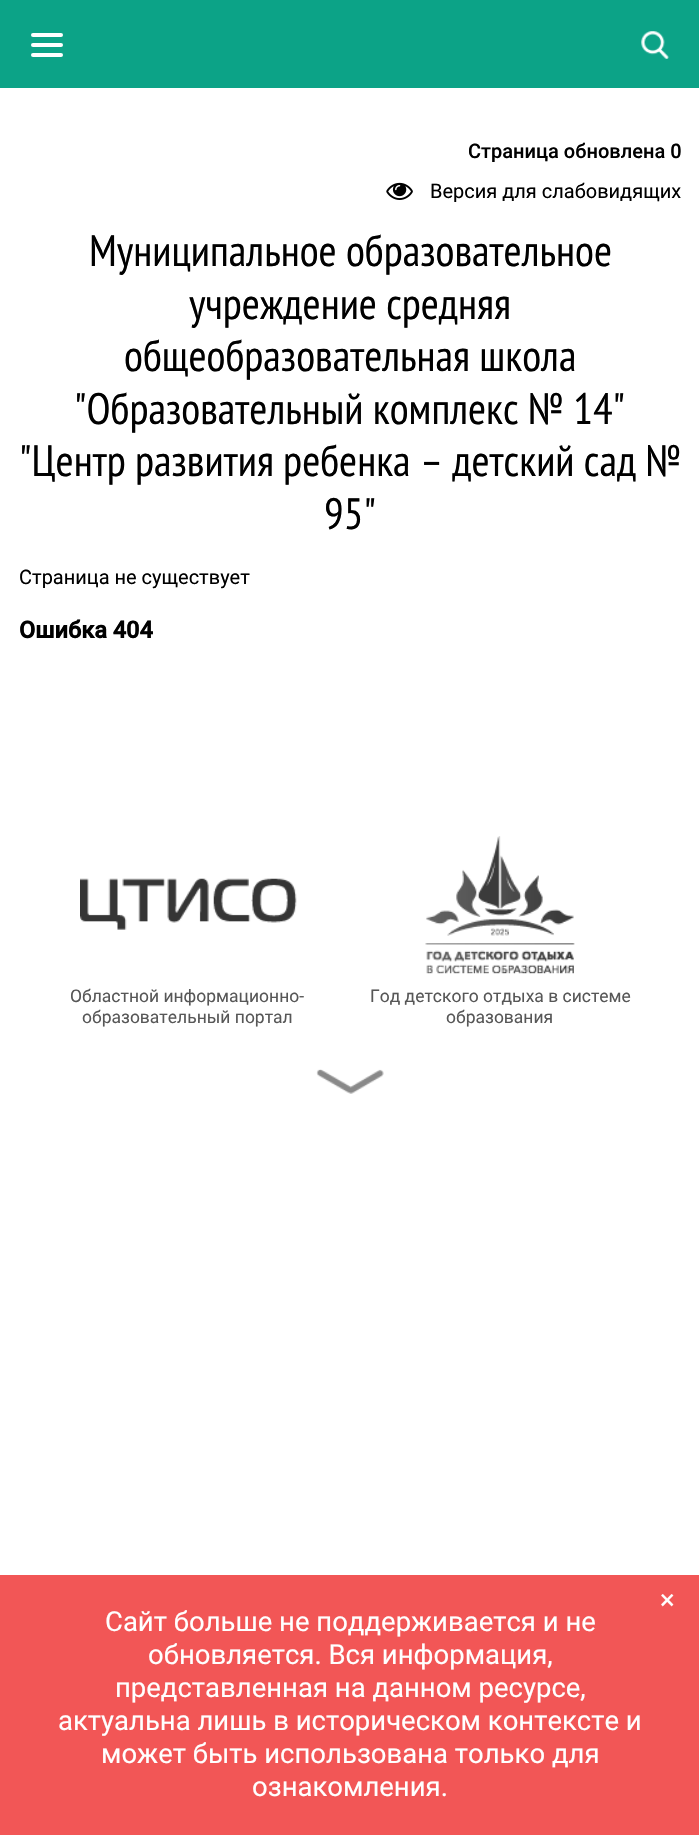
void draw(SkCanvas* canvas) {
	SkPaint paint;
	paint.setAntiAlias(true);
	canvas->clear(0xffffffff);
	paint.setColor(0xff0ca387);
	canvas->drawRect(SkRect::MakeXYWH(0, 0, 699, 88), paint);
	paint.setColor(0xffffffff);
	canvas->drawRoundRect(SkRect::MakeXYWH(31, 33, 32, 4), 2, 2, paint);
	canvas->drawRoundRect(SkRect::MakeXYWH(31, 43, 32, 4), 2, 2, paint);
	canvas->drawRoundRect(SkRect::MakeXYWH(31, 53, 32, 4), 2, 2, paint);
	canvas->drawImageRect(SkImages::DeferredFromEncodedData(SkData::MakeFromFileName("img1.png")), SkRect::MakeXYWH(641, 31, 28, 28), SkSamplingOptions());
	SkFont f1(fontMgr->matchFamilyStyle("Roboto", SkFontStyle(500, SkFontStyle::kNormal_Width, SkFontStyle::kUpright_Slant)), 20);
	f1.setSubpixel(true);
	paint.setColor(0xff000000);
	canvas->drawString("Страница обновлена 0", 468, 158, f1, paint);
	canvas->drawImageRect(SkImages::DeferredFromEncodedData(SkData::MakeFromFileName("img2.png")), SkRect::MakeXYWH(386, 182, 27, 18), SkSamplingOptions());
	SkFont f2(fontMgr->matchFamilyStyle("Roboto", SkFontStyle::Normal()), 20);
	f2.setSubpixel(true);
	canvas->drawString("Версия для слабовидящих", 430, 198, f2, paint);
	SkFont f3(fontMgr->matchFamilyStyle("PT Sans Narrow", SkFontStyle::Normal()), 43.75);
	f3.setSubpixel(true);
	canvas->drawString("Муниципальное образовательное", 89, 266, f3, paint);
	canvas->drawString("учреждение средняя", 189, 319, f3, paint);
	canvas->drawString("общеобразовательная школа", 124, 371, f3, paint);
	canvas->drawString("\"Образовательный комплекс № 14\"", 74, 424, f3, paint);
	canvas->drawString("\"Центр развития ребeнка – детский сад №", 19, 476, f3, paint);
	canvas->drawString("95\"", 324, 529, f3, paint);
	canvas->drawString("Страница не существует", 19, 584, f2, paint);
	SkFont f4(fontMgr->matchFamilyStyle("Roboto", SkFontStyle::Bold()), 23.5);
	f4.setSubpixel(true);
	canvas->drawString("Ошибка 404", 19, 638, f4, paint);
	canvas->drawImageRect(SkImages::DeferredFromEncodedData(SkData::MakeFromFileName("img3.png")), SkRect::MakeXYWH(80, 878, 217, 52), SkSamplingOptions());
	SkFont f5(fontMgr->matchFamilyStyle("Roboto", SkFontStyle::Normal()), 17.5);
	f5.setSubpixel(true);
	paint.setColor(0xff575757);
	canvas->drawString("Областной информационно-", 70, 1002, f5, paint);
	canvas->drawString("образовательный портал", 82, 1023, f5, paint);
	canvas->drawImageRect(SkImages::DeferredFromEncodedData(SkData::MakeFromFileName("img4.png")), SkRect::MakeXYWH(425, 836, 150, 138), SkSamplingOptions());
	canvas->drawString("Год детского отдыха в системе", 370, 1002, f5, paint);
	canvas->drawString("образования", 446, 1023, f5, paint);
	canvas->drawImageRect(SkImages::DeferredFromEncodedData(SkData::MakeFromFileName("img5.png")), SkRect::MakeXYWH(316, 1069, 68, 25), SkSamplingOptions());
	paint.setColor(0xfff25656);
	canvas->drawRect(SkRect::MakeXYWH(0, 1575, 699, 260), paint);
	SkFont f6(fontMgr->matchFamilyStyle("Roboto", SkFontStyle::Normal()), 27.5);
	f6.setSubpixel(true);
	paint.setColor(0xffffffff);
	canvas->drawString("×", 660, 1609, f6, paint);
	canvas->drawString("Сайт больше не поддерживается и не", 105, 1631, f6, paint);
	canvas->drawString("обновляется. Вся информация,", 148, 1664, f6, paint);
	canvas->drawString("представленная на данном ресурсе,", 115, 1697, f6, paint);
	canvas->drawString("актуальна лишь в историческом контексте и", 58, 1730, f6, paint);
	canvas->drawString("может быть использована только для", 101, 1763, f6, paint);
	canvas->drawString("ознакомления.", 252, 1796, f6, paint);
}
